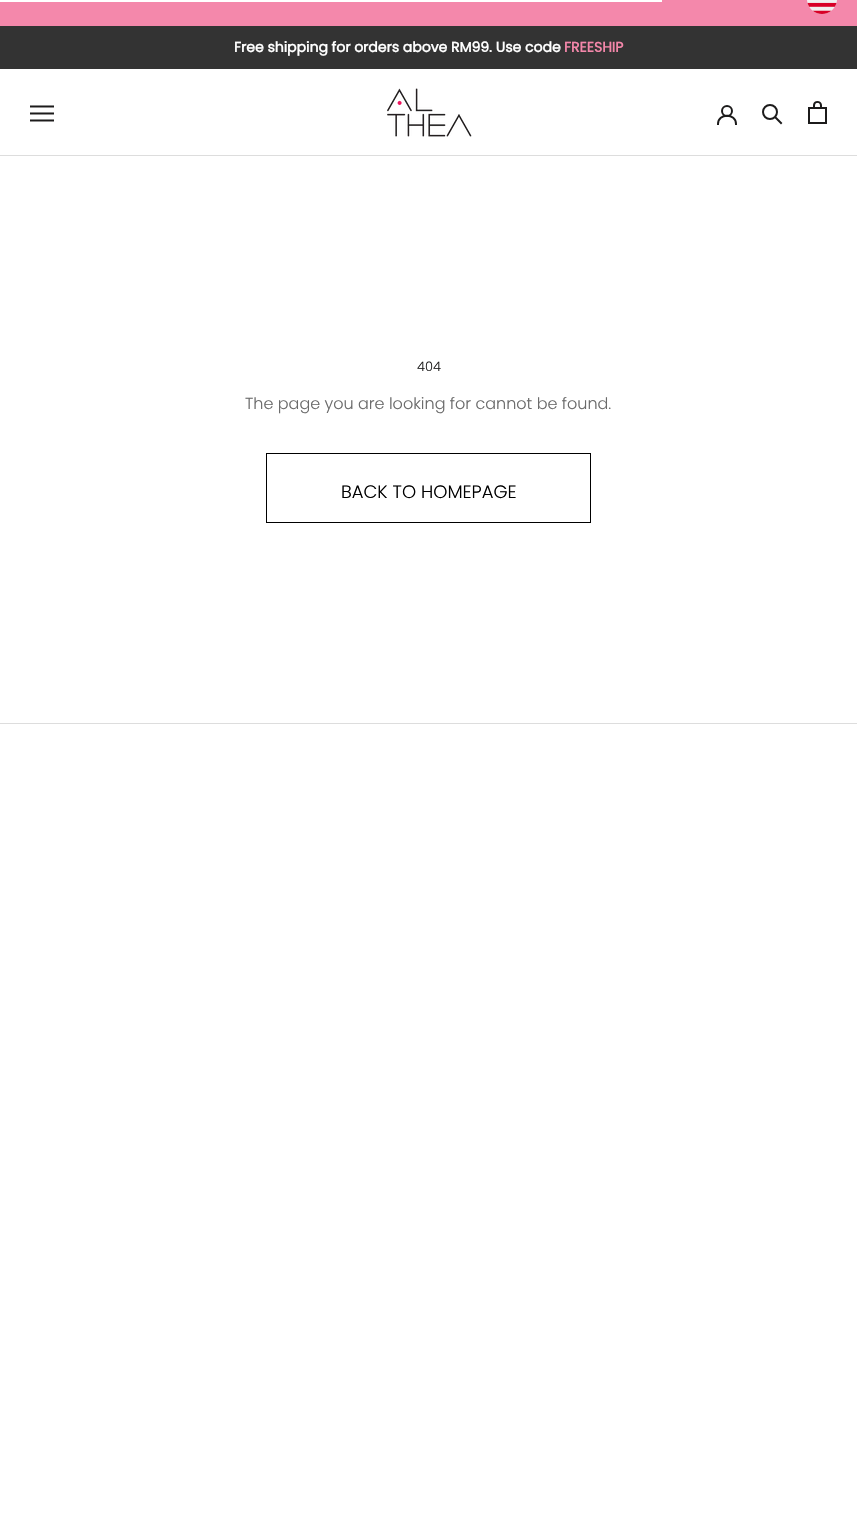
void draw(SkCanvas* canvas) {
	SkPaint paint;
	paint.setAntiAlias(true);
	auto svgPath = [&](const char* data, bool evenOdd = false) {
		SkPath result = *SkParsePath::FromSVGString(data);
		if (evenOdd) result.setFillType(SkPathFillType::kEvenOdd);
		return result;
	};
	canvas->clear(0xffffffff);
	paint.setColor(0xfff488ab);
	canvas->drawRect(SkRect::MakeXYWH(0, 2, 662, 24), paint);
	canvas->drawRect(SkRect::MakeXYWH(662, 0, 195, 26), paint);
	canvas->drawImageRect(SkImages::DeferredFromEncodedData(SkData::MakeFromFileName("img1.png")), SkRect::MakeXYWH(807, 0, 30, 14), SkSamplingOptions());
	paint.setColor(0xff333333);
	canvas->drawRect(SkRect::MakeXYWH(0, 26, 857, 43), paint);
	SkFont f1(fontMgr->matchFamilyStyle("Poppins", SkFontStyle::Bold()), 14);
	f1.setSubpixel(true);
	paint.setColor(0xffffffff);
	canvas->drawString("Free shipping for orders above RM99. Use code", 234, 52, f1, paint);
	paint.setColor(0xfff487aa);
	canvas->drawString("FREESHIP", 564, 52, f1, paint);
	paint.setColor(0xffdddddd);
	canvas->drawRect(SkRect::MakeXYWH(0, 155, 857, 1), paint);
	canvas->drawImageRect(SkImages::DeferredFromEncodedData(SkData::MakeFromFileName("img2.png")), SkRect::MakeXYWH(30, 105, 24, 17), SkSamplingOptions());
	canvas->drawImageRect(SkImages::DeferredFromEncodedData(SkData::MakeFromFileName("img3.png")), SkRect::MakeXYWH(387, 88, 85, 49), SkSamplingOptions());
	paint.setStroke(true);
	paint.setStrokeWidth(2);
	paint.setStrokeCap(SkPaint::kSquare_Cap);
	paint.setColor(0xff1c1b1b);
	canvas->drawPath(svgPath("M718 124C718 113 736 113 736 124"), paint);
	paint.setStrokeCap(SkPaint::kButt_Cap);
	canvas->drawCircle(727, 111, 5, paint);
	paint.setStrokeCap(SkPaint::kSquare_Cap);
	canvas->drawPath(svgPath("M781 123L775.5 117.5"), paint);
	paint.setStrokeCap(SkPaint::kButt_Cap);
	canvas->drawCircle(770, 112, 7, paint);
	canvas->drawImageRect(SkImages::DeferredFromEncodedData(SkData::MakeFromFileName("img4.png")), SkRect::MakeXYWH(808, 101, 19, 23), SkSamplingOptions());
	SkFont f2(fontMgr->matchFamilyStyle("Poppins", SkFontStyle(300, SkFontStyle::kNormal_Width, SkFontStyle::kUpright_Slant)), 13);
	f2.setSubpixel(true);
	paint.setStroke(false);
	canvas->drawString("404", 417, 371, f2, paint);
	SkFont f3(fontMgr->matchFamilyStyle("Poppins", SkFontStyle(300, SkFontStyle::kNormal_Width, SkFontStyle::kUpright_Slant)), 16);
	f3.setSubpixel(true);
	paint.setColor(0xff6a6a6a);
	canvas->drawString("The page you are looking for cannot be found.", 245, 409, f3, paint);
	paint.setStroke(true);
	paint.setStrokeWidth(1);
	paint.setColor(0xff000000);
	canvas->drawRect(SkRect::MakeXYWH(266.5, 453.5, 324, 69), paint);
	SkFont f4(fontMgr->matchFamilyStyle("Poppins", SkFontStyle(300, SkFontStyle::kNormal_Width, SkFontStyle::kUpright_Slant)), 18);
	f4.setSubpixel(true);
	paint.setStroke(false);
	canvas->drawString("BACK TO HOMEPAGE", 341, 498, f4, paint);
	paint.setColor(0xffdddddd);
	canvas->drawRect(SkRect::MakeXYWH(0, 723, 857, 1), paint);
}
